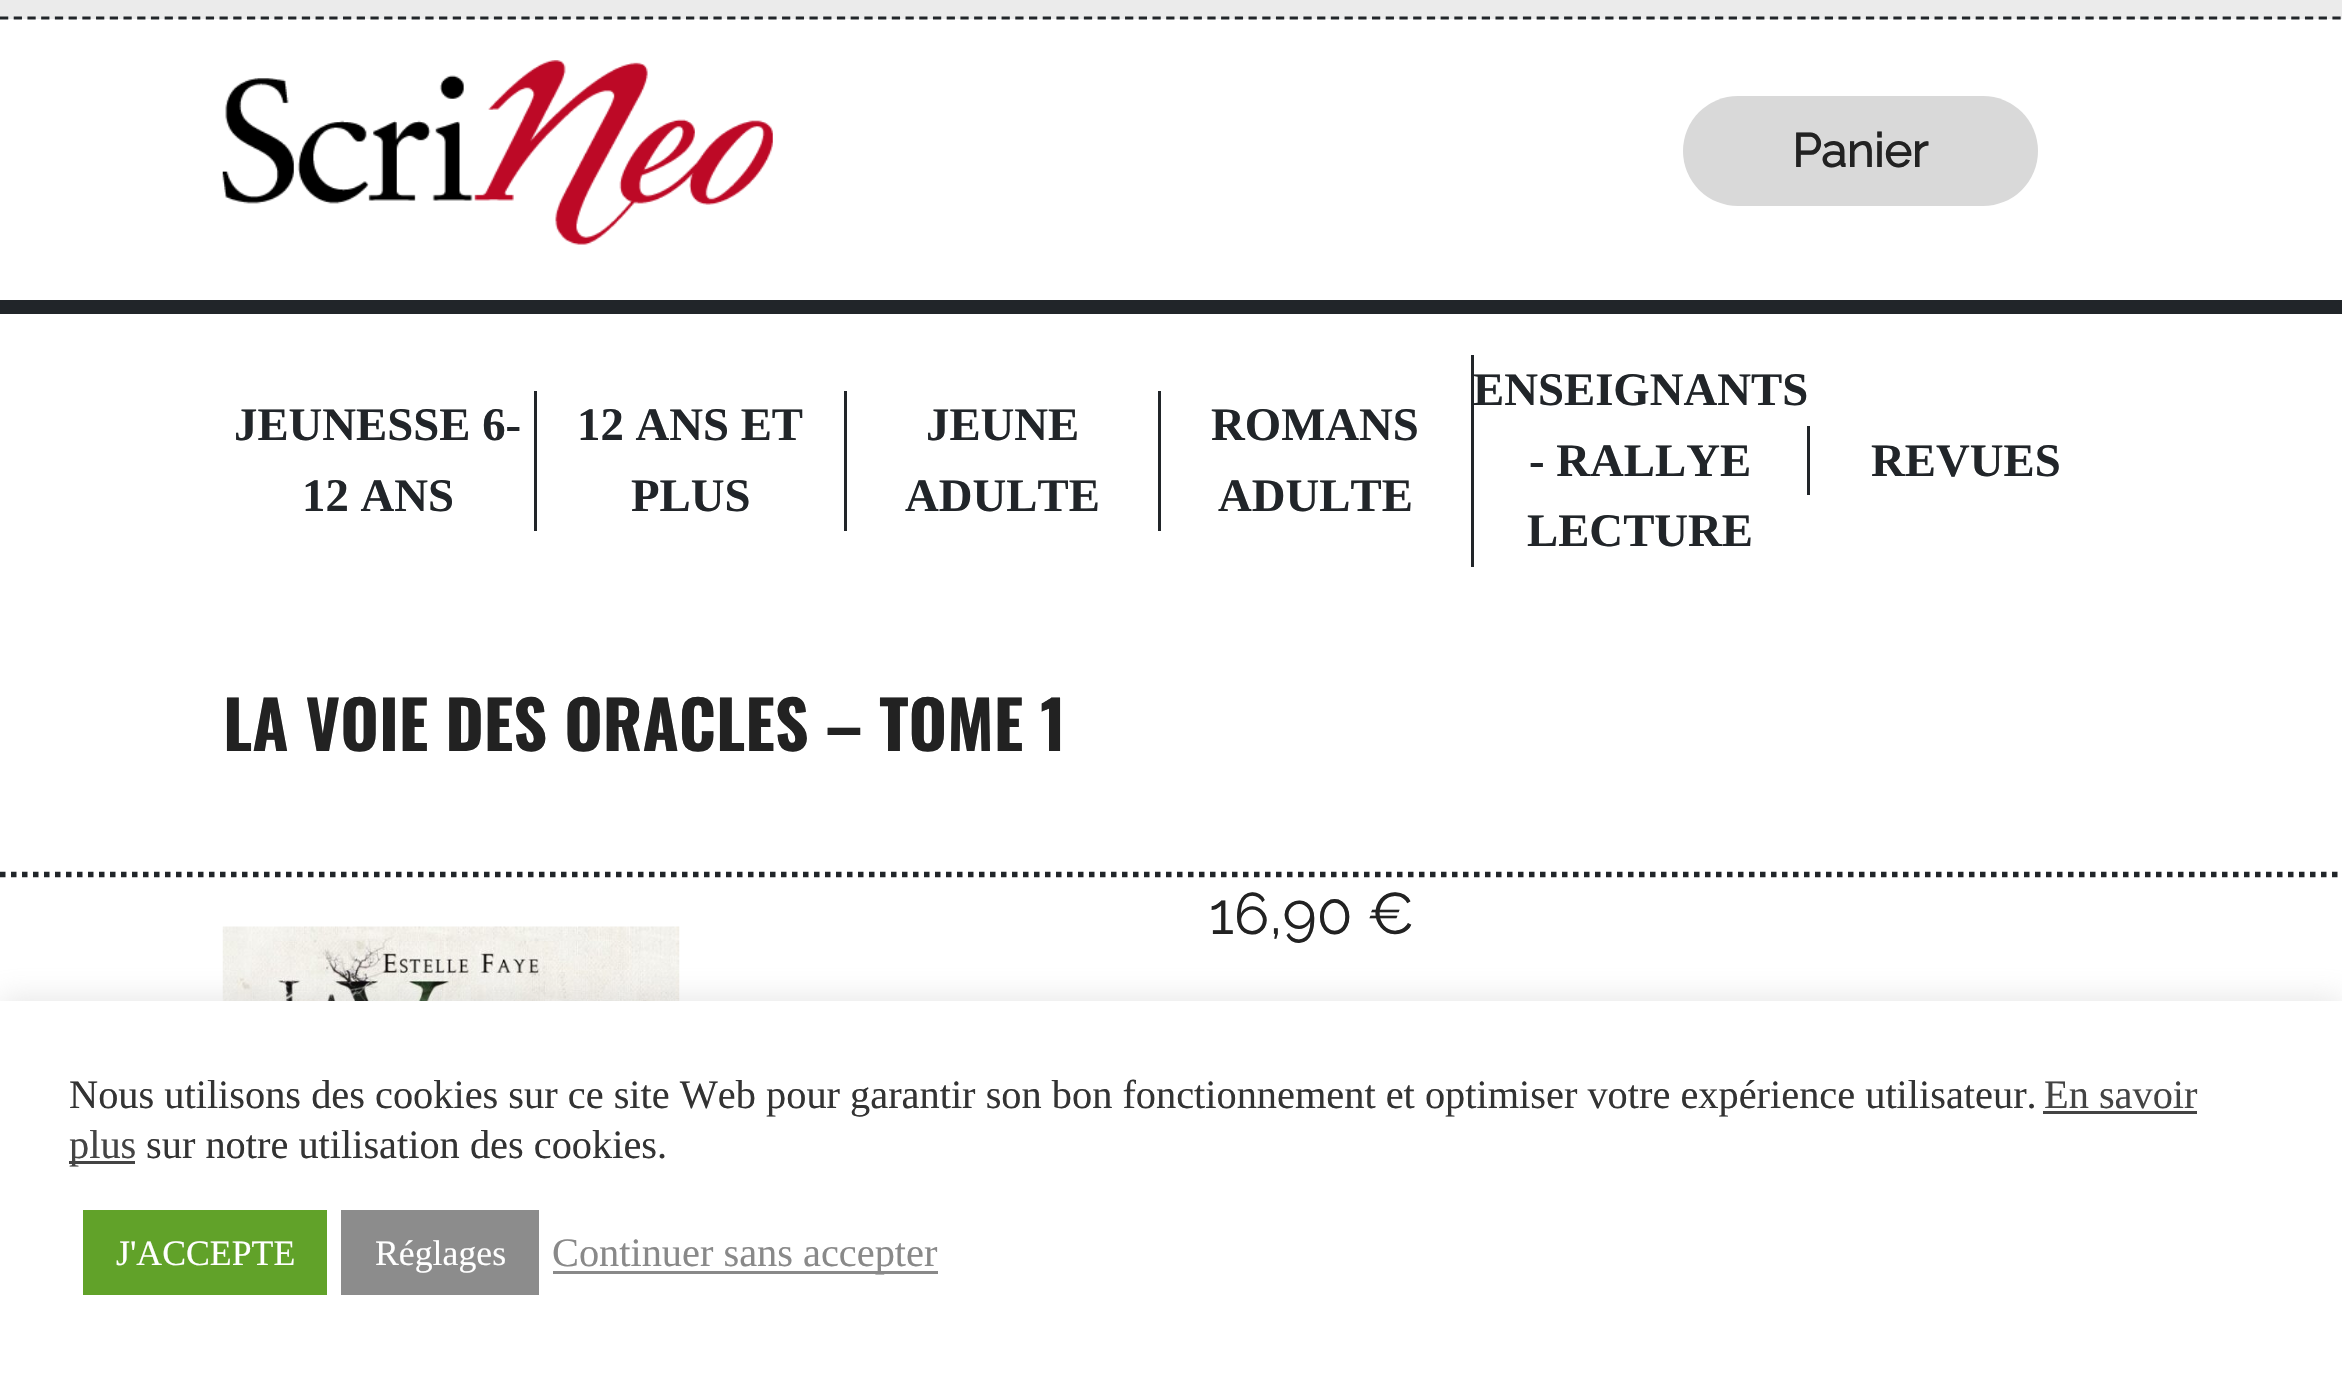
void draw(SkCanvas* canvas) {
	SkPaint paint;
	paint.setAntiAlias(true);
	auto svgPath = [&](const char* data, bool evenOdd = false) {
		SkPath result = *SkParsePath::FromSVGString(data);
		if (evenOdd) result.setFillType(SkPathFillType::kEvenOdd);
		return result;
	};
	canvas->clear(0xffffffff);
	paint.setColor(0xffebebeb);
	canvas->drawRect(SkRect::MakeXYWH(0, 0, 2342, 19), paint);
	paint.setStroke(true);
	paint.setStrokeWidth(2.8);
	paint.setColor(0xff212529);
	paint.setPathEffect(SkDashPathEffect::Make({{8.25f, 5.47f}}, 0));
	canvas->drawPath(svgPath("M0 18H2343"), paint);
	paint.setPathEffect(nullptr);
	paint.setStroke(false);
	canvas->drawRect(SkRect::MakeXYWH(0, 300, 2342, 14), paint);
	canvas->drawImageRect(SkImages::DeferredFromEncodedData(SkData::MakeFromFileName("img1.png")), SkRect::MakeXYWH(222, 60, 551, 185), SkSamplingOptions());
	paint.setColor(0xffd9d9d9);
	canvas->drawRoundRect(SkRect::MakeXYWH(1683, 96, 355, 110), 55, 55, paint);
	SkFont f1(fontMgr->matchFamilyStyle("Raleway", SkFontStyle::Bold()), 46.75);
	f1.setSubpixel(true);
	paint.setColor(0xff222222);
	canvas->drawString("Panier", 1792, 167, f1, paint);
	SkFont f2(fontMgr->matchFamilyStyle("Liberation Serif", SkFontStyle::Bold()), 46.75);
	f2.setSubpixel(true);
	paint.setColor(0xff212529);
	canvas->drawString("JEUNESSE 6-", 234, 440, f2, paint);
	canvas->drawString("12 ANS", 302, 511, f2, paint);
	canvas->drawRect(SkRect::MakeXYWH(534, 391, 3, 140), paint);
	canvas->drawString("12 ANS ET", 577, 440, f2, paint);
	canvas->drawString("PLUS", 631, 511, f2, paint);
	canvas->drawRect(SkRect::MakeXYWH(844, 391, 3, 140), paint);
	canvas->drawString("JEUNE", 926, 440, f2, paint);
	canvas->drawString("ADULTE", 905, 511, f2, paint);
	canvas->drawRect(SkRect::MakeXYWH(1158, 391, 3, 140), paint);
	canvas->drawString("ROMANS", 1211, 440, f2, paint);
	canvas->drawString("ADULTE", 1218, 511, f2, paint);
	canvas->drawRect(SkRect::MakeXYWH(1471, 355, 3, 212), paint);
	canvas->drawString("ENSEIGNANTS", 1473, 405, f2, paint);
	canvas->drawString("- RALLYE", 1529, 476, f2, paint);
	canvas->drawString("LECTURE", 1527, 546, f2, paint);
	canvas->drawRect(SkRect::MakeXYWH(1807, 426, 3, 69), paint);
	canvas->drawString("REVUES", 1871, 476, f2, paint);
	SkFont f3(fontMgr->matchFamilyStyle("Oswald", SkFontStyle::Bold()), 66);
	f3.setSubpixel(true);
	paint.setColor(0xff222222);
	canvas->drawString("LA VOIE DES ORACLES – TOME 1", 223, 751, f3, paint);
	SkFont f4(fontMgr->matchFamilyStyle("Raleway", SkFontStyle(100, SkFontStyle::kNormal_Width, SkFontStyle::kUpright_Slant)), 58.5);
	f4.setSubpixel(true);
	canvas->drawString("16,90 €", 1209, 934, f4, paint);
	canvas->drawImageRect(SkImages::DeferredFromEncodedData(SkData::MakeFromFileName("img2.png")), SkRect::MakeXYWH(222, 926, 458, 75), SkSamplingOptions());
	paint.setStroke(true);
	paint.setStrokeWidth(5.5);
	paint.setColor(0xff212529);
	paint.setPathEffect(SkDashPathEffect::Make({{5.5f, 5.5f}}, 0));
	canvas->drawPath(svgPath("M0 874.5H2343"), paint);
	paint.setPathEffect(nullptr);
	paint.setStroke(false);
	paint.setColor(0x4dacabab);
	paint.setMaskFilter(SkMaskFilter::MakeBlur(kNormal_SkBlurStyle, 14));
	canvas->drawRect(SkRect::MakeXYWH(0, 998, 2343, 377), paint);
	paint.setMaskFilter(nullptr);
	paint.setColor(0xffffffff);
	canvas->drawRect(SkRect::MakeXYWH(0, 1001, 2342, 376), paint);
	SkFont f5(fontMgr->matchFamilyStyle("Liberation Serif", SkFontStyle::Normal()), 40.35);
	f5.setSubpixel(true);
	paint.setColor(0xff333333);
	canvas->drawString("Nous utilisons des cookies sur ce site Web pour garantir son bon fonctionnement et optimiser votre expérience utilisateur.", 69, 1108, f5, paint);
	paint.setColor(0xff444444);
	canvas->drawString("En savoir", 2044, 1108, f5, paint);
	canvas->drawRect(SkRect::MakeXYWH(2043, 1111, 154, 3), paint);
	canvas->drawRect(SkRect::MakeXYWH(69, 1161, 66, 3), paint);
	canvas->drawString("plus", 69, 1158, f5, paint);
	paint.setColor(0xff333333);
	canvas->drawString("sur notre utilisation des cookies.", 146, 1158, f5, paint);
	paint.setColor(0xff61a229);
	canvas->drawRect(SkRect::MakeXYWH(83, 1210, 244, 85), paint);
	SkFont f6(fontMgr->matchFamilyStyle("Liberation Serif", SkFontStyle::Normal()), 35.75);
	f6.setSubpixel(true);
	paint.setColor(0xffffffff);
	canvas->drawString("J'ACCEPTE", 116, 1265, f6, paint);
	paint.setColor(0xff8c8c8c);
	canvas->drawRect(SkRect::MakeXYWH(341, 1210, 198, 85), paint);
	paint.setColor(0xffffffff);
	canvas->drawString("Réglages", 375, 1265, f6, paint);
	paint.setColor(0xff898989);
	canvas->drawRect(SkRect::MakeXYWH(553, 1271, 385, 3), paint);
	canvas->drawString("Continuer sans accepter", 552, 1266, f5, paint);
}
